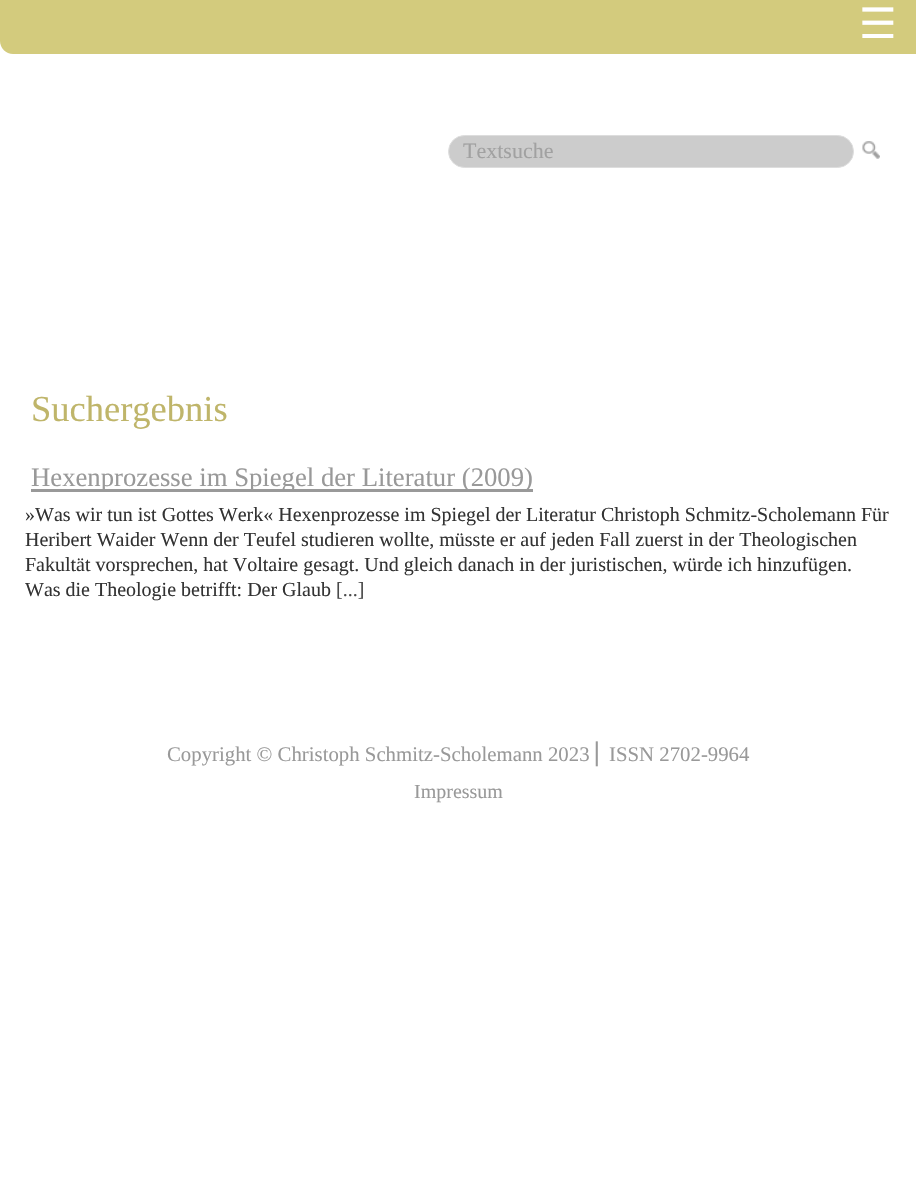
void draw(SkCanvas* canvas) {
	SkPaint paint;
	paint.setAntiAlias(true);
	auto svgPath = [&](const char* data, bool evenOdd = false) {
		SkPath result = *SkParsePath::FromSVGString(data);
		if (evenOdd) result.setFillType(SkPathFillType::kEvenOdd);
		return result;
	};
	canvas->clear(0xffffffff);
	paint.setColor(0xffd3cb7d);
	canvas->drawPath(svgPath("M0 0H916V54H13C6 54 0 48 0 41Z"), paint);
	SkFont f1(fontMgr->matchFamilyStyle("DejaVu Sans", SkFontStyle::Normal()), 42);
	f1.setSubpixel(true);
	paint.setColor(0xffffffff);
	canvas->drawString("☰", 859, 38, f1, paint);
	paint.setColor(0xffcccccc);
	canvas->drawRoundRect(SkRect::MakeXYWH(448.5, 135.5, 405, 32), 16, 16, paint);
	paint.setStroke(true);
	paint.setStrokeWidth(1);
	paint.setColor(0xffdddddd);
	canvas->drawRoundRect(SkRect::MakeXYWH(448.5, 135.5, 405, 32), 16, 16, paint);
	SkFont f2(fontMgr->matchFamilyStyle("Liberation Serif", SkFontStyle::Normal()), 22);
	f2.setSubpixel(true);
	paint.setStroke(false);
	paint.setColor(0xffa1a1a1);
	canvas->drawString("Textsuche", 463, 158, f2, paint);
	canvas->drawImageRect(SkImages::DeferredFromEncodedData(SkData::MakeFromFileName("img1.png")), SkRect::MakeXYWH(862, 141, 18, 18), SkSamplingOptions());
	SkFont f3(fontMgr->matchFamilyStyle("Liberation Serif", SkFontStyle::Normal()), 36.5);
	f3.setSubpixel(true);
	paint.setColor(0xffbfb56a);
	canvas->drawString("Suchergebnis", 31, 421, f3, paint);
	paint.setColor(0xff999999);
	canvas->drawRect(SkRect::MakeXYWH(31, 489, 502, 3), paint);
	SkFont f4(fontMgr->matchFamilyStyle("Liberation Serif", SkFontStyle::Normal()), 26.7);
	f4.setSubpixel(true);
	canvas->drawString("Hexenprozesse im Spiegel der Literatur (2009)", 31, 486, f4, paint);
	SkFont f5(fontMgr->matchFamilyStyle("Liberation Serif", SkFontStyle::Normal()), 20);
	f5.setSubpixel(true);
	paint.setColor(0xff333333);
	canvas->drawString("»Was wir tun ist Gottes Werk« Hexenprozesse im Spiegel der Literatur Christoph Schmitz-Scholemann Für", 25, 521, f5, paint);
	canvas->drawString("Heribert Waider Wenn der Teufel studieren wollte, müsste er auf jeden Fall zuerst in der Theologischen", 25, 546, f5, paint);
	canvas->drawString("Fakultät vorsprechen, hat Voltaire gesagt. Und gleich danach in der juristischen, würde ich hinzufügen.", 25, 571, f5, paint);
	canvas->drawString("Was die Theologie betrifft: Der Glaub", 25, 596, f5, paint);
	paint.setColor(0xff4a4a4a);
	canvas->drawString("[...]", 336, 596, f5, paint);
	SkFont f6(fontMgr->matchFamilyStyle("Liberation Serif", SkFontStyle::Normal()), 20.8);
	f6.setSubpixel(true);
	paint.setColor(0xff999999);
	canvas->drawString("Copyright © Christoph Schmitz-Scholemann 2023", 167, 761, f6, paint);
	SkFont f7(fontMgr->matchFamilyStyle("DejaVu Sans", SkFontStyle::Normal()), 20.8);
	f7.setSubpixel(true);
	canvas->drawString("⎢", 594, 761, f7, paint);
	canvas->drawString("ISSN 2702-9964", 609, 761, f6, paint);
	canvas->drawString("Impressum", 414, 798, f5, paint);
}
